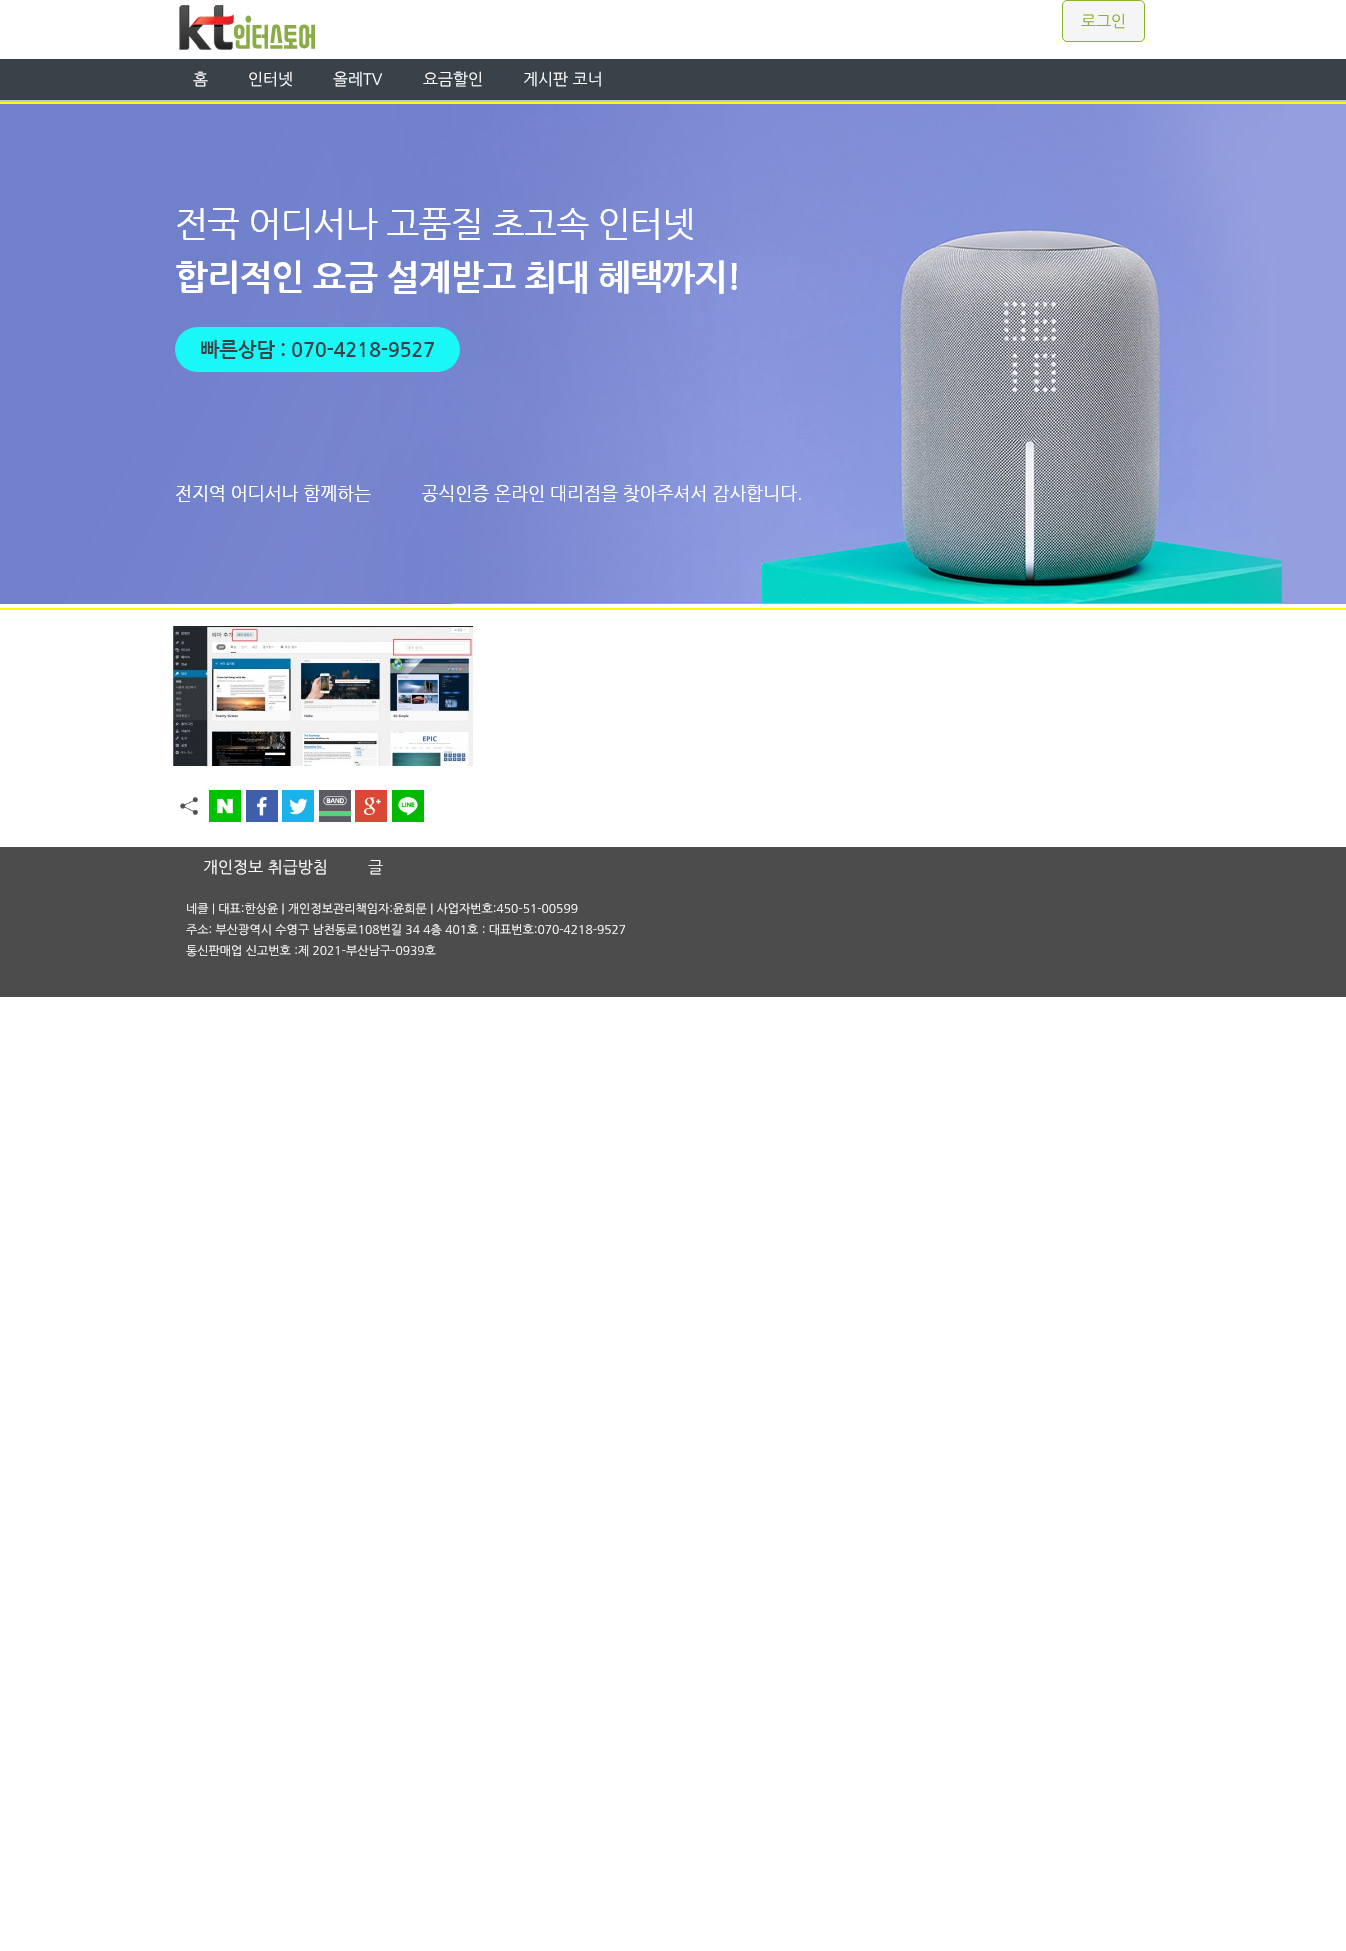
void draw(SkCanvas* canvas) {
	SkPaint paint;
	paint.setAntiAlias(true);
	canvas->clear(0xffffffff);
	paint.setColor(0xffc4c4c4);
	canvas->drawRect(SkRect::MakeXYWH(0, 100, 1346, 2), paint);
	canvas->drawImageRect(SkImages::DeferredFromEncodedData(SkData::MakeFromFileName("img1.png")), SkRect::MakeXYWH(179, 5, 136, 45), SkSamplingOptions());
	paint.setColor(0xfff5f5f5);
	canvas->drawRoundRect(SkRect::MakeXYWH(1062.5, 0.5, 82, 41), 4.5, 4.5, paint);
	paint.setStroke(true);
	paint.setStrokeWidth(1);
	paint.setColor(0xff8ab22b);
	canvas->drawRoundRect(SkRect::MakeXYWH(1062.5, 0.5, 82, 41), 4.5, 4.5, paint);
	SkFont f1(fontMgr->matchFamilyStyle("NanumGothic", SkFontStyle::Normal()), 16);
	f1.setSubpixel(true);
	paint.setStroke(false);
	canvas->drawString("로그인", 1081, 27, f1, paint);
	paint.setColor(0xff394249);
	canvas->drawRect(SkRect::MakeXYWH(0, 59, 1346, 41), paint);
	paint.setColor(0xffffffff);
	canvas->drawString("홈", 193, 85, f1, paint);
	canvas->drawString("인터넷", 248, 85, f1, paint);
	canvas->drawString("올레TV", 333, 85, f1, paint);
	canvas->drawString("요금할인", 423, 85, f1, paint);
	canvas->drawString("게시판 코너", 523, 85, f1, paint);
	paint.setStroke(true);
	paint.setStrokeWidth(2);
	paint.setColor(0xfffcff00);
	canvas->drawRect(SkRect::MakeXYWH(-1, 103, 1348, 506), paint);
	canvas->drawImageRect(SkImages::DeferredFromEncodedData(SkData::MakeFromFileName("img2.png")), SkRect::MakeXYWH(0, 104, 1346, 500), SkSamplingOptions());
	canvas->drawImageRect(SkImages::DeferredFromEncodedData(SkData::MakeFromFileName("img3.png")), SkRect::MakeXYWH(173, 626, 300, 140), SkSamplingOptions());
	canvas->drawImageRect(SkImages::DeferredFromEncodedData(SkData::MakeFromFileName("img4.png")), SkRect::MakeXYWH(180, 797, 18, 18), SkSamplingOptions());
	canvas->drawImageRect(SkImages::DeferredFromEncodedData(SkData::MakeFromFileName("img5.png")), SkRect::MakeXYWH(209, 790, 32, 32), SkSamplingOptions());
	canvas->drawImageRect(SkImages::DeferredFromEncodedData(SkData::MakeFromFileName("img6.png")), SkRect::MakeXYWH(246, 790, 32, 32), SkSamplingOptions());
	canvas->drawImageRect(SkImages::DeferredFromEncodedData(SkData::MakeFromFileName("img7.png")), SkRect::MakeXYWH(282, 790, 32, 32), SkSamplingOptions());
	canvas->drawImageRect(SkImages::DeferredFromEncodedData(SkData::MakeFromFileName("img8.png")), SkRect::MakeXYWH(319, 790, 32, 32), SkSamplingOptions());
	canvas->drawImageRect(SkImages::DeferredFromEncodedData(SkData::MakeFromFileName("img9.png")), SkRect::MakeXYWH(355, 790, 32, 32), SkSamplingOptions());
	canvas->drawImageRect(SkImages::DeferredFromEncodedData(SkData::MakeFromFileName("img10.png")), SkRect::MakeXYWH(392, 790, 32, 32), SkSamplingOptions());
	paint.setStroke(false);
	paint.setColor(0xff4c4c4c);
	canvas->drawRect(SkRect::MakeXYWH(0, 847, 1346, 150), paint);
	paint.setColor(0xffffffff);
	canvas->drawString("개인정보 취급방침", 203, 873, f1, paint);
	canvas->drawString("글", 368, 873, f1, paint);
	SkFont f2(fontMgr->matchFamilyStyle("NanumGothic", SkFontStyle::Normal()), 12);
	f2.setSubpixel(true);
	canvas->drawString("네클 | 대표:한상윤 | 개인정보관리책임자:윤희문 | 사업자번호:450-51-00599", 186, 913, f2, paint);
	canvas->drawString("주소: 부산광역시 수영구 남천동로108번길 34 4층 401호 : 대표번호:070-4218-9527", 186, 934, f2, paint);
	canvas->drawString("통신판매업 신고번호 :제 2021-부산남구-0939호", 186, 955, f2, paint);
}
